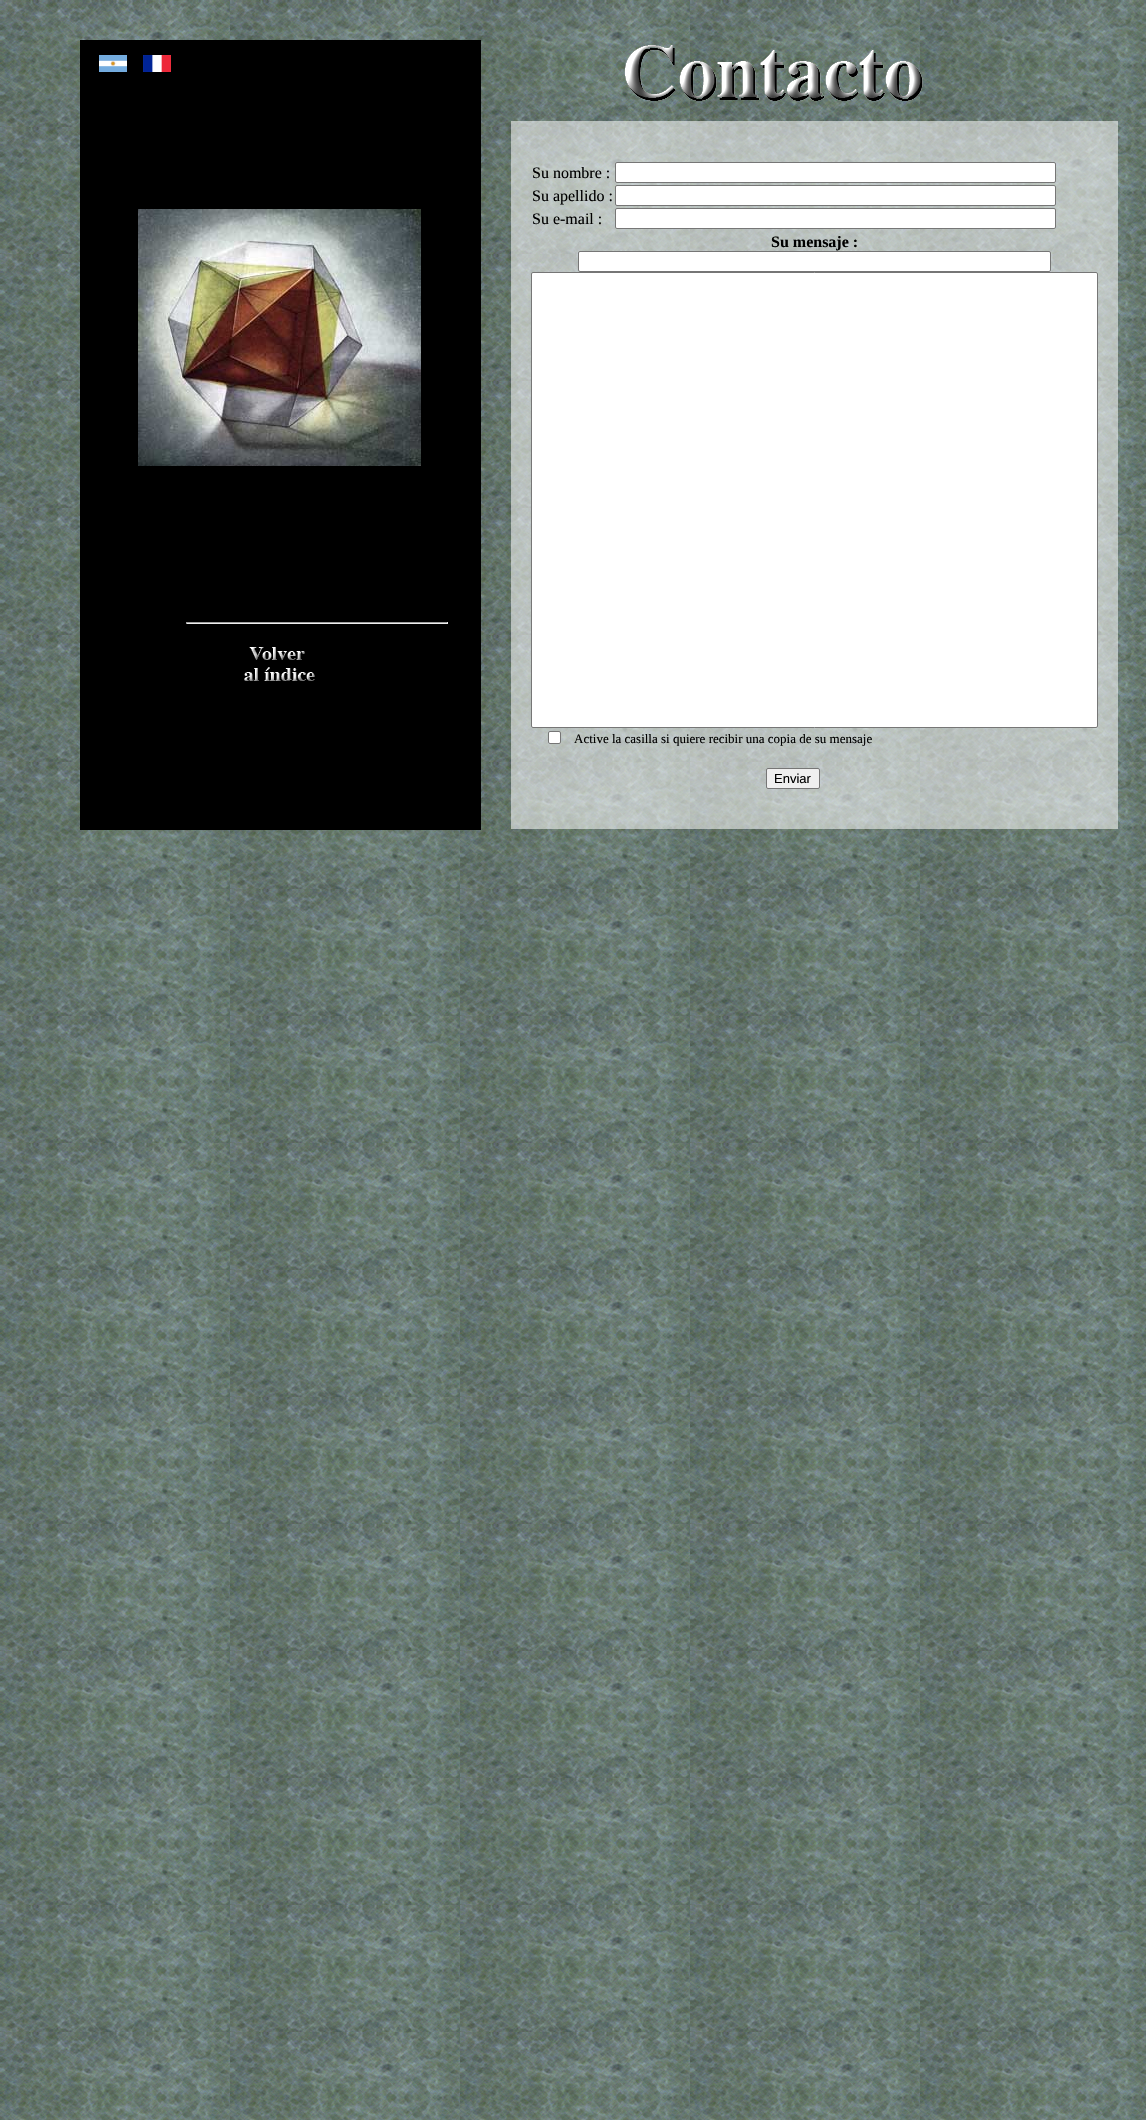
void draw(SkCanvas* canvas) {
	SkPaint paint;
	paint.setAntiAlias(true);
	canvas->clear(0xffffffff);
	canvas->drawImageRect(SkImages::DeferredFromEncodedData(SkData::MakeFromFileName("img1.png")), SkRect::MakeXYWH(0, 0, 1146, 2120), SkSamplingOptions());
	paint.setColor(0xff000000);
	canvas->drawRect(SkRect::MakeXYWH(80, 40, 401, 790), paint);
	canvas->drawImageRect(SkImages::DeferredFromEncodedData(SkData::MakeFromFileName("img2.png")), SkRect::MakeXYWH(99, 55, 28, 17), SkSamplingOptions());
	canvas->drawImageRect(SkImages::DeferredFromEncodedData(SkData::MakeFromFileName("img3.png")), SkRect::MakeXYWH(143, 55, 28, 17), SkSamplingOptions());
	canvas->drawImageRect(SkImages::DeferredFromEncodedData(SkData::MakeFromFileName("img4.png")), SkRect::MakeXYWH(138, 209, 283, 257), SkSamplingOptions());
	paint.setColor(0xff9f9f9f);
	canvas->drawRect(SkRect::MakeXYWH(186, 622, 262, 1), paint);
	paint.setColor(0xffeeeeee);
	canvas->drawRect(SkRect::MakeXYWH(447, 622, 1, 2), paint);
	canvas->drawRect(SkRect::MakeXYWH(186, 623, 262, 1), paint);
	paint.setColor(0xff9f9f9f);
	canvas->drawRect(SkRect::MakeXYWH(186, 622, 1, 2), paint);
	canvas->drawImageRect(SkImages::DeferredFromEncodedData(SkData::MakeFromFileName("img5.png")), SkRect::MakeXYWH(244, 647, 71, 34), SkSamplingOptions());
	canvas->drawImageRect(SkImages::DeferredFromEncodedData(SkData::MakeFromFileName("img6.png")), SkRect::MakeXYWH(624, 45, 299, 56), SkSamplingOptions());
	paint.setColor(0x8cffffff);
	canvas->drawRect(SkRect::MakeXYWH(511, 121, 607, 708), paint);
	SkFont f1(fontMgr->matchFamilyStyle("Liberation Serif", SkFontStyle::Normal()), 16);
	f1.setSubpixel(true);
	paint.setColor(0xff000000);
	canvas->drawString("Su nombre :", 532, 178, f1, paint);
	paint.setColor(0xffffffff);
	canvas->drawRoundRect(SkRect::MakeXYWH(615.5, 162.5, 440, 20), 1.5, 1.5, paint);
	paint.setStroke(true);
	paint.setStrokeWidth(1);
	paint.setColor(0xff767676);
	canvas->drawRoundRect(SkRect::MakeXYWH(615.5, 162.5, 440, 20), 1.5, 1.5, paint);
	paint.setStroke(false);
	paint.setColor(0xff000000);
	canvas->drawString("Su apellido :", 532, 201, f1, paint);
	paint.setColor(0xffffffff);
	canvas->drawRoundRect(SkRect::MakeXYWH(615.5, 185.5, 440, 20), 1.5, 1.5, paint);
	paint.setStroke(true);
	paint.setColor(0xff767676);
	canvas->drawRoundRect(SkRect::MakeXYWH(615.5, 185.5, 440, 20), 1.5, 1.5, paint);
	paint.setStroke(false);
	paint.setColor(0xff000000);
	canvas->drawString("Su e-mail :", 532, 224, f1, paint);
	paint.setColor(0xffffffff);
	canvas->drawRoundRect(SkRect::MakeXYWH(615.5, 208.5, 440, 20), 1.5, 1.5, paint);
	paint.setStroke(true);
	paint.setColor(0xff767676);
	canvas->drawRoundRect(SkRect::MakeXYWH(615.5, 208.5, 440, 20), 1.5, 1.5, paint);
	SkFont f2(fontMgr->matchFamilyStyle("Liberation Serif", SkFontStyle::Bold()), 16);
	f2.setSubpixel(true);
	paint.setStroke(false);
	paint.setColor(0xff000000);
	canvas->drawString("Su mensaje :", 771, 247, f2, paint);
	paint.setColor(0xffffffff);
	canvas->drawRoundRect(SkRect::MakeXYWH(578.5, 251.5, 472, 20), 1.5, 1.5, paint);
	paint.setStroke(true);
	paint.setColor(0xff767676);
	canvas->drawRoundRect(SkRect::MakeXYWH(578.5, 251.5, 472, 20), 1.5, 1.5, paint);
	paint.setStroke(false);
	paint.setColor(0xffffffff);
	canvas->drawRoundRect(SkRect::MakeXYWH(531.5, 272.5, 566, 455), 1.5, 1.5, paint);
	paint.setStroke(true);
	paint.setColor(0xff767676);
	canvas->drawRoundRect(SkRect::MakeXYWH(531.5, 272.5, 566, 455), 1.5, 1.5, paint);
	paint.setStroke(false);
	paint.setColor(0xffffffff);
	canvas->drawRoundRect(SkRect::MakeXYWH(548.5, 731.5, 12, 12), 1.5, 1.5, paint);
	paint.setStroke(true);
	paint.setColor(0xff767676);
	canvas->drawRoundRect(SkRect::MakeXYWH(548.5, 731.5, 12, 12), 1.5, 1.5, paint);
	SkFont f3(fontMgr->matchFamilyStyle("Liberation Serif", SkFontStyle::Normal()), 13);
	f3.setSubpixel(true);
	paint.setStroke(false);
	paint.setColor(0xff000000);
	canvas->drawString("Active la casilla si quiere recibir una copia de su mensaje", 574, 743, f3, paint);
	paint.setColor(0xffefefef);
	canvas->drawRoundRect(SkRect::MakeXYWH(766.5, 768.5, 53, 20), 1.5, 1.5, paint);
	paint.setStroke(true);
	paint.setColor(0xff767676);
	canvas->drawRoundRect(SkRect::MakeXYWH(766.5, 768.5, 53, 20), 1.5, 1.5, paint);
	SkFont f4(fontMgr->matchFamilyStyle("Liberation Sans", SkFontStyle::Normal()), 13);
	f4.setSubpixel(true);
	paint.setStroke(false);
	paint.setColor(0xff000000);
	canvas->drawString("Enviar", 774, 783, f4, paint);
}
